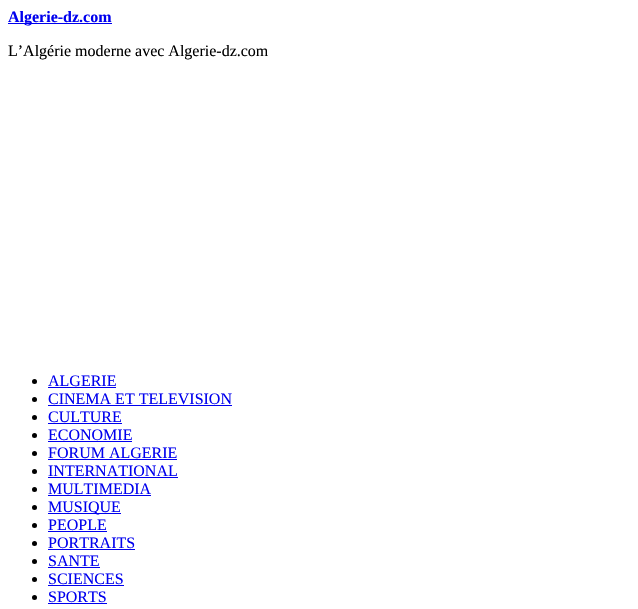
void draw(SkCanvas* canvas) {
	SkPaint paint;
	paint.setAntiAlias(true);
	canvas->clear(0xffffffff);
	paint.setColor(0xff0000ee);
	canvas->drawRect(SkRect::MakeXYWH(8, 23, 104, 1), paint);
	SkFont f1(fontMgr->matchFamilyStyle("Liberation Serif", SkFontStyle::Bold()), 16);
	f1.setSubpixel(true);
	canvas->drawString("Algerie-dz.com", 8, 22, f1, paint);
	SkFont f2(fontMgr->matchFamilyStyle("Liberation Serif", SkFontStyle::Normal()), 16);
	f2.setSubpixel(true);
	paint.setColor(0xff000000);
	canvas->drawString("L’Algérie moderne avec Algerie-dz.com", 8, 56, f2, paint);
	canvas->drawCircle(34.5, 381.5, 2.5, paint);
	paint.setColor(0xff0000ee);
	canvas->drawString("ALGERIE", 48, 386, f2, paint);
	canvas->drawRect(SkRect::MakeXYWH(48, 387, 68, 1), paint);
	paint.setColor(0xff000000);
	canvas->drawCircle(34.5, 399.5, 2.5, paint);
	paint.setColor(0xff0000ee);
	canvas->drawString("CINEMA ET TELEVISION", 48, 404, f2, paint);
	canvas->drawRect(SkRect::MakeXYWH(48, 405, 184, 1), paint);
	paint.setColor(0xff000000);
	canvas->drawCircle(34.5, 417.5, 2.5, paint);
	paint.setColor(0xff0000ee);
	canvas->drawString("CULTURE", 48, 422, f2, paint);
	canvas->drawRect(SkRect::MakeXYWH(48, 423, 74, 1), paint);
	paint.setColor(0xff000000);
	canvas->drawCircle(34.5, 435.5, 2.5, paint);
	paint.setColor(0xff0000ee);
	canvas->drawString("ECONOMIE", 48, 440, f2, paint);
	canvas->drawRect(SkRect::MakeXYWH(48, 441, 84, 1), paint);
	paint.setColor(0xff000000);
	canvas->drawCircle(34.5, 453.5, 2.5, paint);
	paint.setColor(0xff0000ee);
	canvas->drawString("FORUM ALGERIE", 48, 458, f2, paint);
	canvas->drawRect(SkRect::MakeXYWH(48, 459, 129, 1), paint);
	paint.setColor(0xff000000);
	canvas->drawCircle(34.5, 471.5, 2.5, paint);
	paint.setColor(0xff0000ee);
	canvas->drawString("INTERNATIONAL", 48, 476, f2, paint);
	canvas->drawRect(SkRect::MakeXYWH(48, 477, 130, 1), paint);
	paint.setColor(0xff000000);
	canvas->drawCircle(34.5, 489.5, 2.5, paint);
	paint.setColor(0xff0000ee);
	canvas->drawString("MULTIMEDIA", 48, 494, f2, paint);
	canvas->drawRect(SkRect::MakeXYWH(48, 495, 103, 1), paint);
	paint.setColor(0xff000000);
	canvas->drawCircle(34.5, 507.5, 2.5, paint);
	paint.setColor(0xff0000ee);
	canvas->drawRect(SkRect::MakeXYWH(48, 513, 73, 1), paint);
	canvas->drawString("MUSIQUE", 48, 512, f2, paint);
	paint.setColor(0xff000000);
	canvas->drawCircle(34.5, 525.5, 2.5, paint);
	paint.setColor(0xff0000ee);
	canvas->drawString("PEOPLE", 48, 530, f2, paint);
	canvas->drawRect(SkRect::MakeXYWH(48, 531, 59, 1), paint);
	paint.setColor(0xff000000);
	canvas->drawCircle(34.5, 543.5, 2.5, paint);
	paint.setColor(0xff0000ee);
	canvas->drawString("PORTRAITS", 48, 548, f2, paint);
	canvas->drawRect(SkRect::MakeXYWH(48, 549, 87, 1), paint);
	paint.setColor(0xff000000);
	canvas->drawCircle(34.5, 561.5, 2.5, paint);
	paint.setColor(0xff0000ee);
	canvas->drawString("SANTE", 48, 566, f2, paint);
	canvas->drawRect(SkRect::MakeXYWH(48, 567, 52, 1), paint);
	paint.setColor(0xff000000);
	canvas->drawCircle(34.5, 579.5, 2.5, paint);
	paint.setColor(0xff0000ee);
	canvas->drawString("SCIENCES", 48, 584, f2, paint);
	canvas->drawRect(SkRect::MakeXYWH(48, 585, 76, 1), paint);
	paint.setColor(0xff000000);
	canvas->drawCircle(34.5, 597.5, 2.5, paint);
	paint.setColor(0xff0000ee);
	canvas->drawString("SPORTS", 48, 602, f2, paint);
	canvas->drawRect(SkRect::MakeXYWH(48, 603, 59, 1), paint);
}
